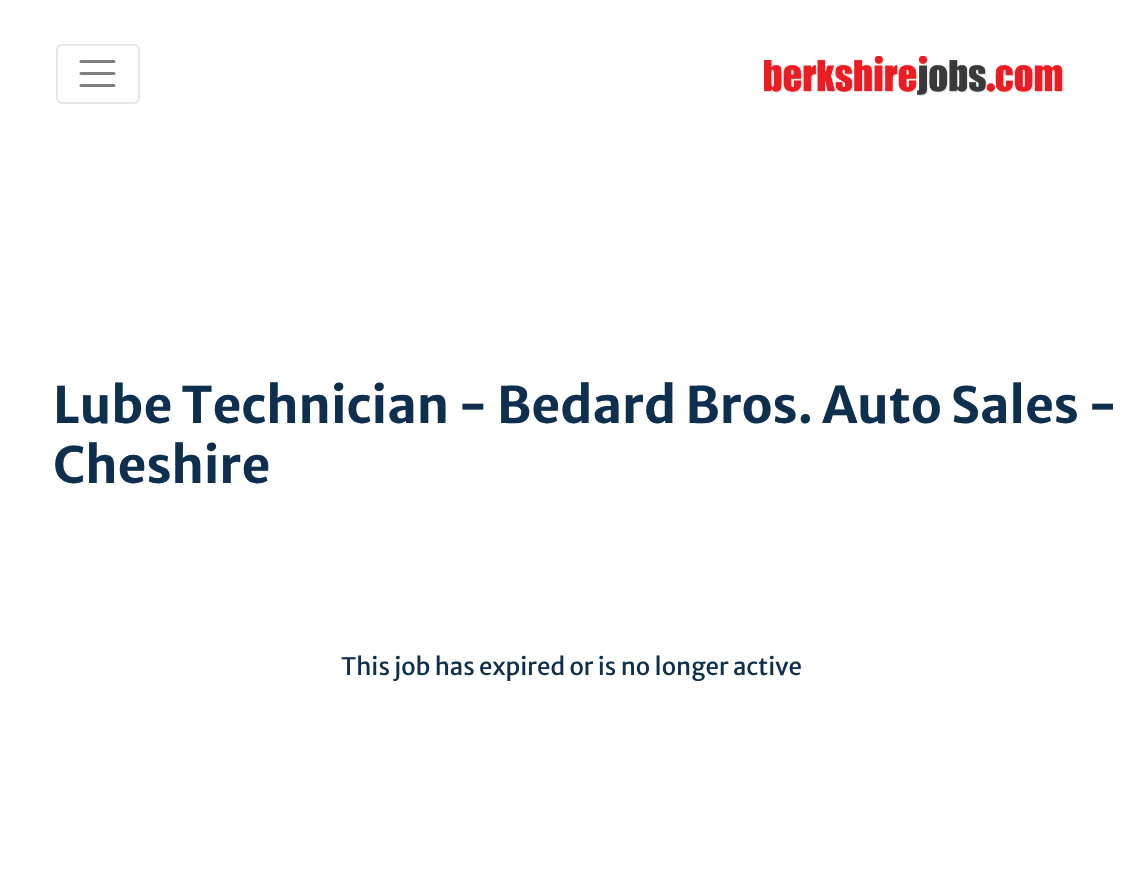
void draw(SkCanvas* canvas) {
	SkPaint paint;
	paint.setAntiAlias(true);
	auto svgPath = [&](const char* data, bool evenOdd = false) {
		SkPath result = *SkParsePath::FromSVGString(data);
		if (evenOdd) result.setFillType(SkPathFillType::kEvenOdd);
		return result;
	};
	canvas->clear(0xffffffff);
	paint.setStroke(true);
	paint.setStrokeWidth(2);
	paint.setColor(0xffe6e6e6);
	canvas->drawRoundRect(SkRect::MakeXYWH(57, 45, 82, 58), 5, 5, paint);
	paint.setStrokeWidth(3);
	paint.setStrokeCap(SkPaint::kRound_Cap);
	paint.setColor(0xff808080);
	canvas->drawPath(svgPath("M81 61.5H114M81 73.5H114M81 85.5H114"), paint);
	canvas->drawImageRect(SkImages::DeferredFromEncodedData(SkData::MakeFromFileName("img1.png")), SkRect::MakeXYWH(764, 56, 300, 40), SkSamplingOptions());
	SkFont f1(fontMgr->matchFamilyStyle("Merriweather Sans", SkFontStyle::Bold()), 50);
	f1.setSubpixel(true);
	paint.setStroke(false);
	paint.setColor(0xff0f2f4f);
	canvas->drawString("Lube Technician - Bedard Bros. Auto Sales -", 53, 423, f1, paint);
	canvas->drawString("Cheshire", 53, 483, f1, paint);
	SkFont f2(fontMgr->matchFamilyStyle("Merriweather Sans", SkFontStyle::Normal()), 24);
	f2.setSubpixel(true);
	canvas->drawString("This job has expired or is no longer active", 341, 675, f2, paint);
}
